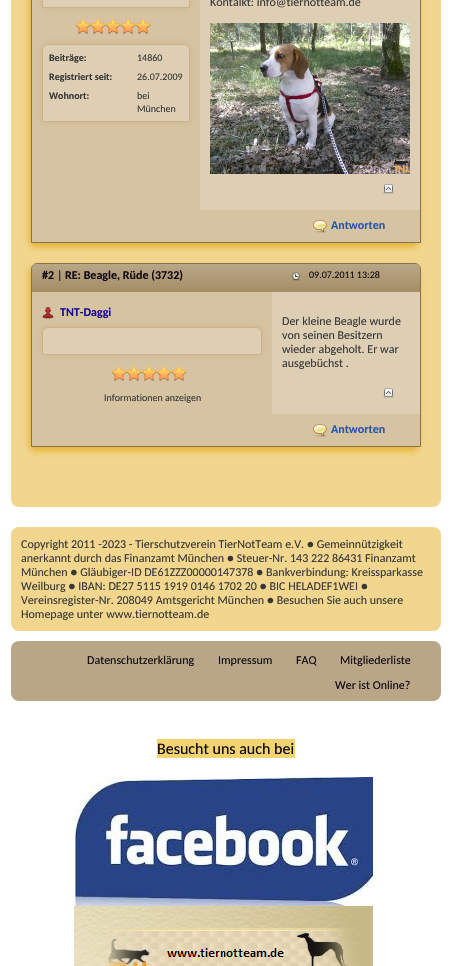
void draw(SkCanvas* canvas) {
	SkPaint paint;
	paint.setAntiAlias(true);
	auto svgPath = [&](const char* data, bool evenOdd = false) {
		SkPath result = *SkParsePath::FromSVGString(data);
		if (evenOdd) result.setFillType(SkPathFillType::kEvenOdd);
		return result;
	};
	canvas->clear(0xffffffff);
	paint.setColor(0xfff2d68e);
	canvas->drawRoundRect(SkRect::MakeXYWH(11, -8, 430, 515), 8, 8, paint);
	paint.setColor(0xffe7b432);
	paint.setMaskFilter(SkMaskFilter::MakeBlur(kNormal_SkBlurStyle, 3));
	canvas->drawRoundRect(SkRect::MakeXYWH(29, -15, 390, 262), 6, 6, paint);
	paint.setMaskFilter(nullptr);
	paint.setStroke(true);
	paint.setStrokeWidth(1);
	paint.setColor(0xff88734f);
	canvas->drawRect(SkRect::MakeXYWH(31.5, -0.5, 389, 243), paint);
	paint.setStroke(false);
	paint.setColor(0xffdecfb4);
	canvas->drawRect(SkRect::MakeXYWH(200, 0, 220, 210), paint);
	SkFont f1(fontMgr->matchFamilyStyle("Carlito", SkFontStyle::Normal()), 12);
	f1.setSubpixel(true);
	paint.setColor(0xff383838);
	canvas->drawString("Kontalkt: info@tiernotteam.de", 210, 6, f1, paint);
	canvas->drawImageRect(SkImages::DeferredFromEncodedData(SkData::MakeFromFileName("img1.png")), SkRect::MakeXYWH(210, 23, 200, 151), SkSamplingOptions());
	paint.setColor(0xffd6c3a2);
	canvas->drawRect(SkRect::MakeXYWH(32, 0, 168, 210), paint);
	paint.setColor(0xffcbb389);
	paint.setMaskFilter(SkMaskFilter::MakeBlur(kNormal_SkBlurStyle, 3));
	canvas->drawRoundRect(SkRect::MakeXYWH(42, -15, 148, 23), 6, 6, paint);
	paint.setMaskFilter(nullptr);
	paint.setColor(0xffdecfb4);
	canvas->drawRect(SkRect::MakeXYWH(42.5, -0.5, 147, 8), paint);
	paint.setStroke(true);
	paint.setColor(0xffcbb389);
	canvas->drawRect(SkRect::MakeXYWH(42.5, -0.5, 147, 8), paint);
	canvas->drawImageRect(SkImages::DeferredFromEncodedData(SkData::MakeFromFileName("img2.png")), SkRect::MakeXYWH(76, 19, 75, 15), SkSamplingOptions());
	paint.setStroke(false);
	paint.setMaskFilter(SkMaskFilter::MakeBlur(kNormal_SkBlurStyle, 3));
	canvas->drawRoundRect(SkRect::MakeXYWH(42, 44, 148, 78), 6, 6, paint);
	paint.setMaskFilter(nullptr);
	paint.setColor(0xffdecfb4);
	canvas->drawPath(svgPath("M48 44.5H184C187 44.5 189.5 47 189.5 50V121.5H42.5V50C42.5 47 45 44.5 48 44.5Z"), paint);
	paint.setStroke(true);
	paint.setColor(0xffcbb389);
	canvas->drawPath(svgPath("M48 44.5H184C187 44.5 189.5 47 189.5 50V121.5H42.5V50C42.5 47 45 44.5 48 44.5Z"), paint);
	SkFont f2(fontMgr->matchFamilyStyle("Carlito", SkFontStyle::Bold()), 10);
	f2.setSubpixel(true);
	paint.setStroke(false);
	paint.setColor(0xff383838);
	canvas->drawString("Beiträge:", 49, 61, f2, paint);
	SkFont f3(fontMgr->matchFamilyStyle("Carlito", SkFontStyle::Normal()), 10);
	f3.setSubpixel(true);
	canvas->drawString("14860", 137, 61, f3, paint);
	canvas->drawString("Registriert seit:", 49, 80, f2, paint);
	canvas->drawString("26.07.2009", 137, 80, f3, paint);
	canvas->drawString("Wohnort:", 49, 99, f2, paint);
	canvas->drawString("bei", 137, 99, f3, paint);
	canvas->drawString("München", 137, 112, f3, paint);
	paint.setColor(0xffd6c3a2);
	canvas->drawRect(SkRect::MakeXYWH(32, 210, 388, 32), paint);
	canvas->drawImageRect(SkImages::DeferredFromEncodedData(SkData::MakeFromFileName("img3.png")), SkRect::MakeXYWH(313, 220, 14, 13), SkSamplingOptions());
	SkFont f4(fontMgr->matchFamilyStyle("Carlito", SkFontStyle::Bold()), 12);
	f4.setSubpixel(true);
	paint.setColor(0xff2557ad);
	canvas->drawString("Antworten", 331, 229, f4, paint);
	canvas->drawImageRect(SkImages::DeferredFromEncodedData(SkData::MakeFromFileName("img4.png")), SkRect::MakeXYWH(383, 184, 11, 10), SkSamplingOptions());
	paint.setColor(0xffe7b432);
	paint.setMaskFilter(SkMaskFilter::MakeBlur(kNormal_SkBlurStyle, 3));
	canvas->drawRoundRect(SkRect::MakeXYWH(29, 267, 390, 184), 6, 6, paint);
	paint.setMaskFilter(nullptr);
	paint.setStroke(true);
	paint.setColor(0xff88734f);
	canvas->drawPath(svgPath("M37 263.5H415C418 263.5 420.5 266 420.5 269V446.5H31.5V269C31.5 266 34 263.5 37 263.5Z"), paint);
	paint.setStroke(false);
	{
		const SkColor colors[] = {0xffb8a686, 0xffa58e65};
		const float stops[] = {0, 1};
		const SkPoint ends[] = {{32, 264}, {32, 292}};
		paint.setShader(SkGradientShader::MakeLinear(ends, colors, stops, 2, SkTileMode::kClamp));
		paint.setAlpha(255);
	}
	canvas->drawPath(svgPath("M37 264H415C418 264 420 266 420 269V292H32V269C32 266 34 264 37 264Z"), paint);
	paint.setShader(nullptr);
	paint.setColor(0xff0f080f);
	canvas->drawString("#2", 42, 279, f4, paint);
	canvas->drawString("|", 57, 279, f1, paint);
	canvas->drawString("RE: Beagle, Rüde (3732)", 65, 279, f4, paint);
	canvas->drawImageRect(SkImages::DeferredFromEncodedData(SkData::MakeFromFileName("img5.png")), SkRect::MakeXYWH(292, 272, 8, 9), SkSamplingOptions());
	canvas->drawString("09.07.2011 13:28", 309, 278, f3, paint);
	paint.setColor(0xffdecfb4);
	canvas->drawRect(SkRect::MakeXYWH(272, 292, 148, 122), paint);
	paint.setColor(0xffd6c3a2);
	canvas->drawRect(SkRect::MakeXYWH(32, 292, 240, 122), paint);
	canvas->drawImageRect(SkImages::DeferredFromEncodedData(SkData::MakeFromFileName("img6.png")), SkRect::MakeXYWH(42, 307, 12, 12), SkSamplingOptions());
	paint.setColor(0xff18069c);
	canvas->drawString("TNT-Daggi", 60, 316, f4, paint);
	paint.setColor(0xffcbb389);
	paint.setMaskFilter(SkMaskFilter::MakeBlur(kNormal_SkBlurStyle, 3));
	canvas->drawRoundRect(SkRect::MakeXYWH(42, 327, 220, 28), 6, 6, paint);
	paint.setMaskFilter(nullptr);
	paint.setColor(0xffdecfb4);
	canvas->drawPath(svgPath("M48 327.5H256C259 327.5 261.5 330 261.5 333V354.5H42.5V333C42.5 330 45 327.5 48 327.5Z"), paint);
	paint.setStroke(true);
	paint.setColor(0xffcbb389);
	canvas->drawPath(svgPath("M48 327.5H256C259 327.5 261.5 330 261.5 333V354.5H42.5V333C42.5 330 45 327.5 48 327.5Z"), paint);
	canvas->drawImageRect(SkImages::DeferredFromEncodedData(SkData::MakeFromFileName("img2.png")), SkRect::MakeXYWH(112, 366, 75, 15), SkSamplingOptions());
	paint.setStroke(false);
	paint.setColor(0xff383838);
	canvas->drawString("Informationen anzeigen", 104, 401, f3, paint);
	canvas->drawString("Der kleine Beagle wurde", 282, 325, f1, paint);
	canvas->drawString("von seinen Besitzern", 282, 339, f1, paint);
	canvas->drawString("wieder abgeholt. Er war", 282, 353, f1, paint);
	canvas->drawString("ausgebüchst .", 282, 367, f1, paint);
	paint.setColor(0xffd6c3a2);
	canvas->drawRect(SkRect::MakeXYWH(32, 414, 388, 32), paint);
	canvas->drawImageRect(SkImages::DeferredFromEncodedData(SkData::MakeFromFileName("img3.png")), SkRect::MakeXYWH(313, 424, 14, 13), SkSamplingOptions());
	paint.setColor(0xff2557ad);
	canvas->drawString("Antworten", 331, 433, f4, paint);
	canvas->drawImageRect(SkImages::DeferredFromEncodedData(SkData::MakeFromFileName("img4.png")), SkRect::MakeXYWH(383, 388, 11, 10), SkSamplingOptions());
	paint.setColor(0xfff2d68e);
	canvas->drawRoundRect(SkRect::MakeXYWH(11, 527, 430, 104), 8, 8, paint);
	paint.setColor(0xff383838);
	canvas->drawString("Copyright 2011 -2023 - Tierschutzverein TierNotTeam e.V. ● Gemeinnützigkeit", 21, 548, f1, paint);
	canvas->drawString("anerkannt durch das Finanzamt München ● Steuer-Nr. 143 222 86431 Finanzamt", 21, 562, f1, paint);
	canvas->drawString("München ● Gläubiger-ID DE61ZZZ00000147378 ● Bankverbindung: Kreissparkasse", 21, 576, f1, paint);
	canvas->drawString("Weilburg ● IBAN: DE27 5115 1919 0146 1702 20 ● BIC HELADEF1WEI ●", 21, 590, f1, paint);
	canvas->drawString("Vereinsregister-Nr. 208049 Amtsgericht München ● Besuchen Sie auch unsere", 21, 604, f1, paint);
	canvas->drawString("Homepage unter www.tiernotteam.de", 21, 618, f1, paint);
	paint.setColor(0xffb8a686);
	canvas->drawRoundRect(SkRect::MakeXYWH(11, 641, 430, 60), 8, 8, paint);
	paint.setColor(0xff0f080f);
	canvas->drawString("Datenschutzerklärung", 87, 664, f1, paint);
	canvas->drawString("Impressum", 218, 664, f1, paint);
	canvas->drawString("FAQ", 296, 664, f1, paint);
	canvas->drawString("Mitgliederliste", 340, 664, f1, paint);
	canvas->drawString("Wer ist Online?", 335, 689, f1, paint);
	paint.setColor(0xfff2d36f);
	canvas->drawRect(SkRect::MakeXYWH(157, 739, 138, 19), paint);
	SkFont f5(fontMgr->matchFamilyStyle("Carlito", SkFontStyle::Normal()), 16);
	f5.setSubpixel(true);
	paint.setColor(0xff050005);
	canvas->drawString("Besucht uns auch bei", 157, 754, f5, paint);
	canvas->drawImageRect(SkImages::DeferredFromEncodedData(SkData::MakeFromFileName("img7.png")), SkRect::MakeXYWH(75, 777, 298, 129), SkSamplingOptions());
	canvas->drawImageRect(SkImages::DeferredFromEncodedData(SkData::MakeFromFileName("img8.png")), SkRect::MakeXYWH(74, 906, 299, 60), SkSamplingOptions());
}
